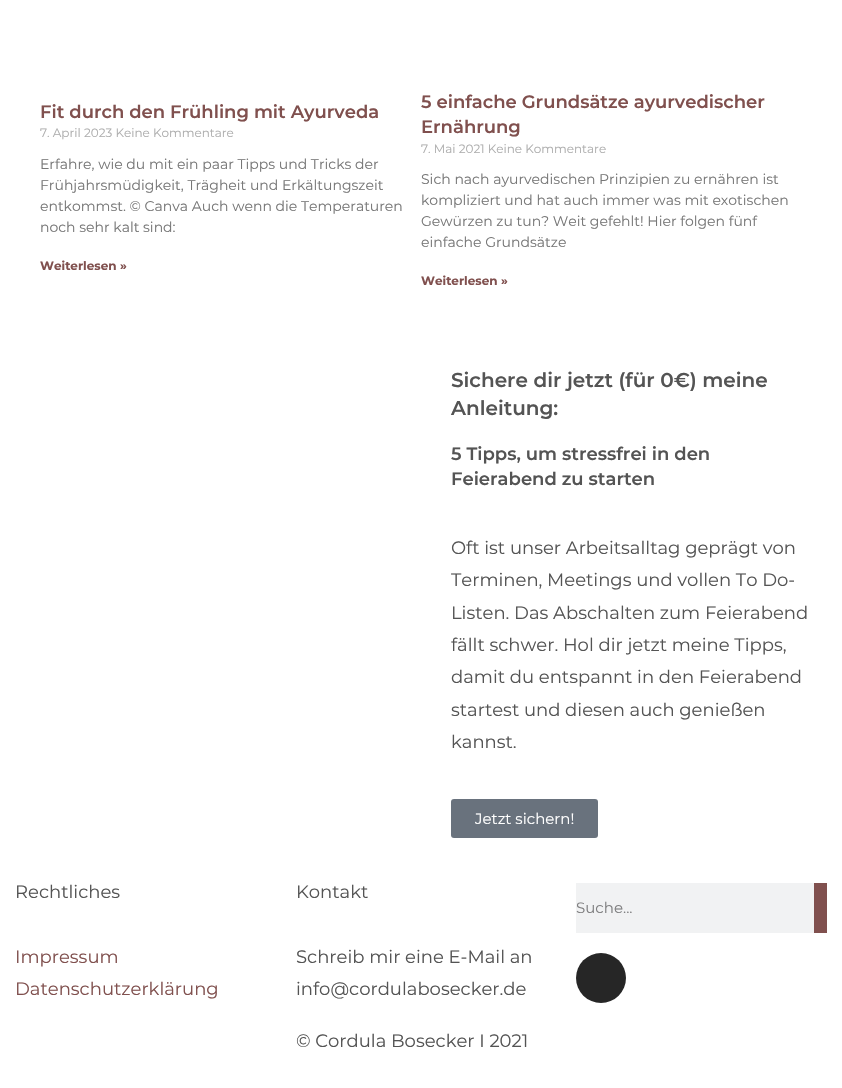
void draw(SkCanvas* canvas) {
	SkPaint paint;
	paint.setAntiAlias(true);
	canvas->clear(0xffffffff);
	SkFont f1(fontMgr->matchFamilyStyle("Montserrat", SkFontStyle(600, SkFontStyle::kNormal_Width, SkFontStyle::kUpright_Slant)), 18);
	f1.setSubpixel(true);
	paint.setColor(0xff80504e);
	canvas->drawString("Fit durch den Frühling mit Ayurveda", 40, 118, f1, paint);
	SkFont f2(fontMgr->matchFamilyStyle("Montserrat", SkFontStyle::Normal()), 12);
	f2.setSubpixel(true);
	paint.setColor(0xffadadad);
	canvas->drawString("7. April 2023 Keine Kommentare", 40, 137, f2, paint);
	SkFont f3(fontMgr->matchFamilyStyle("Montserrat", SkFontStyle::Normal()), 14);
	f3.setSubpixel(true);
	paint.setColor(0xff777777);
	canvas->drawString("Erfahre, wie du mit ein paar Tipps und Tricks der", 40, 169, f3, paint);
	canvas->drawString("Frühjahrsmüdigkeit, Trägheit und Erkältungszeit", 40, 190, f3, paint);
	canvas->drawString("entkommst. © Canva Auch wenn die Temperaturen", 40, 211, f3, paint);
	canvas->drawString("noch sehr kalt sind:", 40, 232, f3, paint);
	SkFont f4(fontMgr->matchFamilyStyle("Montserrat", SkFontStyle::Bold()), 12);
	f4.setSubpixel(true);
	paint.setColor(0xff80504e);
	canvas->drawString("Weiterlesen »", 40, 270, f4, paint);
	canvas->drawString("5 einfache Grundsätze ayurvedischer", 421, 108, f1, paint);
	canvas->drawString("Ernährung", 421, 133, f1, paint);
	paint.setColor(0xffadadad);
	canvas->drawString("7. Mai 2021 Keine Kommentare", 421, 153, f2, paint);
	paint.setColor(0xff777777);
	canvas->drawString("Sich nach ayurvedischen Prinzipien zu ernähren ist", 421, 184, f3, paint);
	canvas->drawString("kompliziert und hat auch immer was mit exotischen", 421, 205, f3, paint);
	canvas->drawString("Gewürzen zu tun? Weit gefehlt! Hier folgen fünf", 421, 226, f3, paint);
	canvas->drawString("einfache Grundsätze", 421, 247, f3, paint);
	paint.setColor(0xff80504e);
	canvas->drawString("Weiterlesen »", 421, 285, f4, paint);
	SkFont f5(fontMgr->matchFamilyStyle("Montserrat", SkFontStyle(600, SkFontStyle::kNormal_Width, SkFontStyle::kUpright_Slant)), 20);
	f5.setSubpixel(true);
	paint.setColor(0xff545454);
	canvas->drawString("Sichere dir jetzt (für 0€) meine", 451, 387, f5, paint);
	canvas->drawString("Anleitung:", 451, 415, f5, paint);
	canvas->drawString("5 Tipps, um stressfrei in den", 451, 460, f1, paint);
	canvas->drawString("Feierabend zu starten", 451, 485, f1, paint);
	SkFont f6(fontMgr->matchFamilyStyle("Montserrat", SkFontStyle::Normal()), 18);
	f6.setSubpixel(true);
	canvas->drawString("Oft ist unser Arbeitsalltag geprägt von", 451, 554, f6, paint);
	canvas->drawString("Terminen, Meetings und vollen To Do-", 451, 586, f6, paint);
	canvas->drawString("Listen. Das Abschalten zum Feierabend", 451, 619, f6, paint);
	canvas->drawString("fällt schwer. Hol dir jetzt meine Tipps,", 451, 651, f6, paint);
	canvas->drawString("damit du entspannt in den Feierabend", 451, 683, f6, paint);
	canvas->drawString("startest und diesen auch genießen", 451, 716, f6, paint);
	canvas->drawString("kannst.", 451, 748, f6, paint);
	paint.setColor(0xff69727d);
	canvas->drawRoundRect(SkRect::MakeXYWH(451, 799, 147, 39), 3, 3, paint);
	SkFont f7(fontMgr->matchFamilyStyle("Montserrat", SkFontStyle::Normal()), 15);
	f7.setSubpixel(true);
	paint.setColor(0xffffffff);
	canvas->drawString("Jetzt sichern!", 475, 824, f7, paint);
	paint.setColor(0xff545454);
	canvas->drawString("Rechtliches", 15, 898, f6, paint);
	paint.setColor(0xff80504e);
	canvas->drawString("Impressum", 15, 963, f6, paint);
	canvas->drawString("Datenschutzerklärung", 15, 995, f6, paint);
	paint.setColor(0xff545454);
	canvas->drawString("Kontakt", 296, 898, f6, paint);
	canvas->drawString("Schreib mir eine E-Mail an", 296, 963, f6, paint);
	canvas->drawString("info@cordulabosecker.de", 296, 995, f6, paint);
	canvas->drawString("© Cordula Bosecker I 2021", 296, 1047, f6, paint);
	paint.setColor(0xfff1f2f3);
	canvas->drawRect(SkRect::MakeXYWH(576, 883, 238, 50), paint);
	paint.setColor(0xff7f7f80);
	canvas->drawString("Suche...", 576, 913, f7, paint);
	paint.setColor(0xff80504e);
	canvas->drawRect(SkRect::MakeXYWH(814, 883, 13, 50), paint);
	paint.setColor(0xff262626);
	canvas->drawCircle(601, 978, 25, paint);
}
